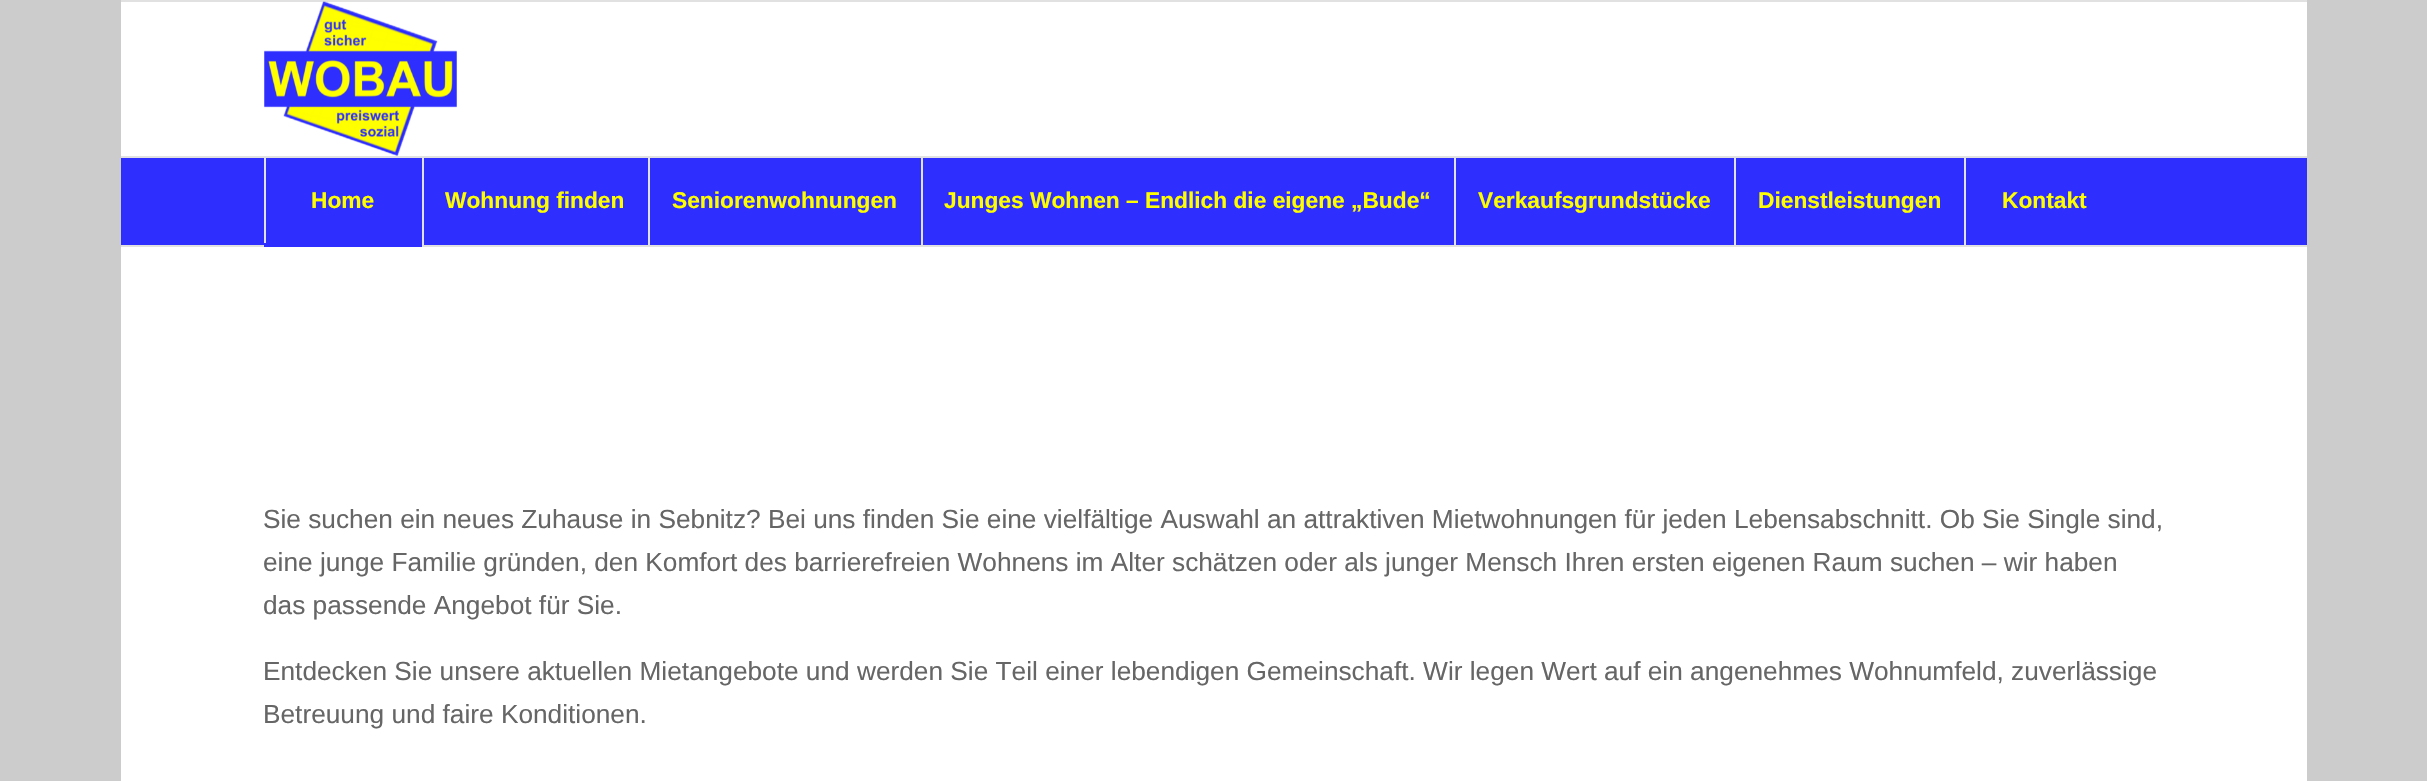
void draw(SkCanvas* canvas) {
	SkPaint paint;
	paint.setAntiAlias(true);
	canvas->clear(0xffcccccc);
	paint.setColor(0xffe1e1e1);
	canvas->drawRect(SkRect::MakeXYWH(121, 0, 2186, 2), paint);
	paint.setColor(0xffffffff);
	canvas->drawRect(SkRect::MakeXYWH(121, 2, 2186, 779), paint);
	paint.setColor(0xffe1e1e1);
	canvas->drawRect(SkRect::MakeXYWH(121, 245, 2186, 2), paint);
	canvas->drawImageRect(SkImages::DeferredFromEncodedData(SkData::MakeFromFileName("img1.png")), SkRect::MakeXYWH(264, 1, 193, 155), SkSamplingOptions());
	paint.setColor(0xff2e2eff);
	canvas->drawRect(SkRect::MakeXYWH(121, 158, 2186, 87), paint);
	paint.setColor(0xffe1e1e1);
	canvas->drawRect(SkRect::MakeXYWH(121, 156, 2186, 2), paint);
	canvas->drawRect(SkRect::MakeXYWH(264, 158, 2, 87), paint);
	SkFont f1(fontMgr->matchFamilyStyle("Liberation Sans", SkFontStyle::Bold()), 22.75);
	f1.setSubpixel(true);
	paint.setColor(0xfffefe00);
	canvas->drawString("Home", 311, 208, f1, paint);
	paint.setColor(0xff2e2eff);
	canvas->drawRect(SkRect::MakeXYWH(264, 243, 158, 4), paint);
	paint.setColor(0xffe1e1e1);
	canvas->drawRect(SkRect::MakeXYWH(422, 158, 2, 87), paint);
	paint.setColor(0xfffefe00);
	canvas->drawString("Wohnung finden", 445, 208, f1, paint);
	paint.setColor(0xffe1e1e1);
	canvas->drawRect(SkRect::MakeXYWH(648, 158, 2, 87), paint);
	paint.setColor(0xfffefe00);
	canvas->drawString("Seniorenwohnungen", 672, 208, f1, paint);
	paint.setColor(0xffe1e1e1);
	canvas->drawRect(SkRect::MakeXYWH(921, 158, 2, 87), paint);
	paint.setColor(0xfffefe00);
	canvas->drawString("Junges Wohnen – Endlich die eigene „Bude“", 944, 208, f1, paint);
	paint.setColor(0xffe1e1e1);
	canvas->drawRect(SkRect::MakeXYWH(1454, 158, 2, 87), paint);
	paint.setColor(0xfffefe00);
	canvas->drawString("Verkaufsgrundstücke", 1478, 208, f1, paint);
	paint.setColor(0xffe1e1e1);
	canvas->drawRect(SkRect::MakeXYWH(1734, 158, 2, 87), paint);
	paint.setColor(0xfffefe00);
	canvas->drawString("Dienstleistungen", 1758, 208, f1, paint);
	paint.setColor(0xffe1e1e1);
	canvas->drawRect(SkRect::MakeXYWH(1964, 158, 2, 87), paint);
	paint.setColor(0xfffefe00);
	canvas->drawString("Kontakt", 2002, 208, f1, paint);
	SkFont f2(fontMgr->matchFamilyStyle("Liberation Sans", SkFontStyle::Normal()), 26.25);
	f2.setSubpixel(true);
	paint.setColor(0xff666666);
	canvas->drawString("Sie suchen ein neues Zuhause in Sebnitz? Bei uns finden Sie eine vielfältige Auswahl an attraktiven Mietwohnungen für jeden Lebensabschnitt. Ob Sie Single sind,", 263, 528, f2, paint);
	canvas->drawString("eine junge Familie gründen, den Komfort des barrierefreien Wohnens im Alter schätzen oder als junger Mensch Ihren ersten eigenen Raum suchen – wir haben", 263, 571, f2, paint);
	canvas->drawString("das passende Angebot für Sie.", 263, 614, f2, paint);
	canvas->drawString("Entdecken Sie unsere aktuellen Mietangebote und werden Sie Teil einer lebendigen Gemeinschaft. Wir legen Wert auf ein angenehmes Wohnumfeld, zuverlässige", 263, 680, f2, paint);
	canvas->drawString("Betreuung und faire Konditionen.", 263, 723, f2, paint);
}
